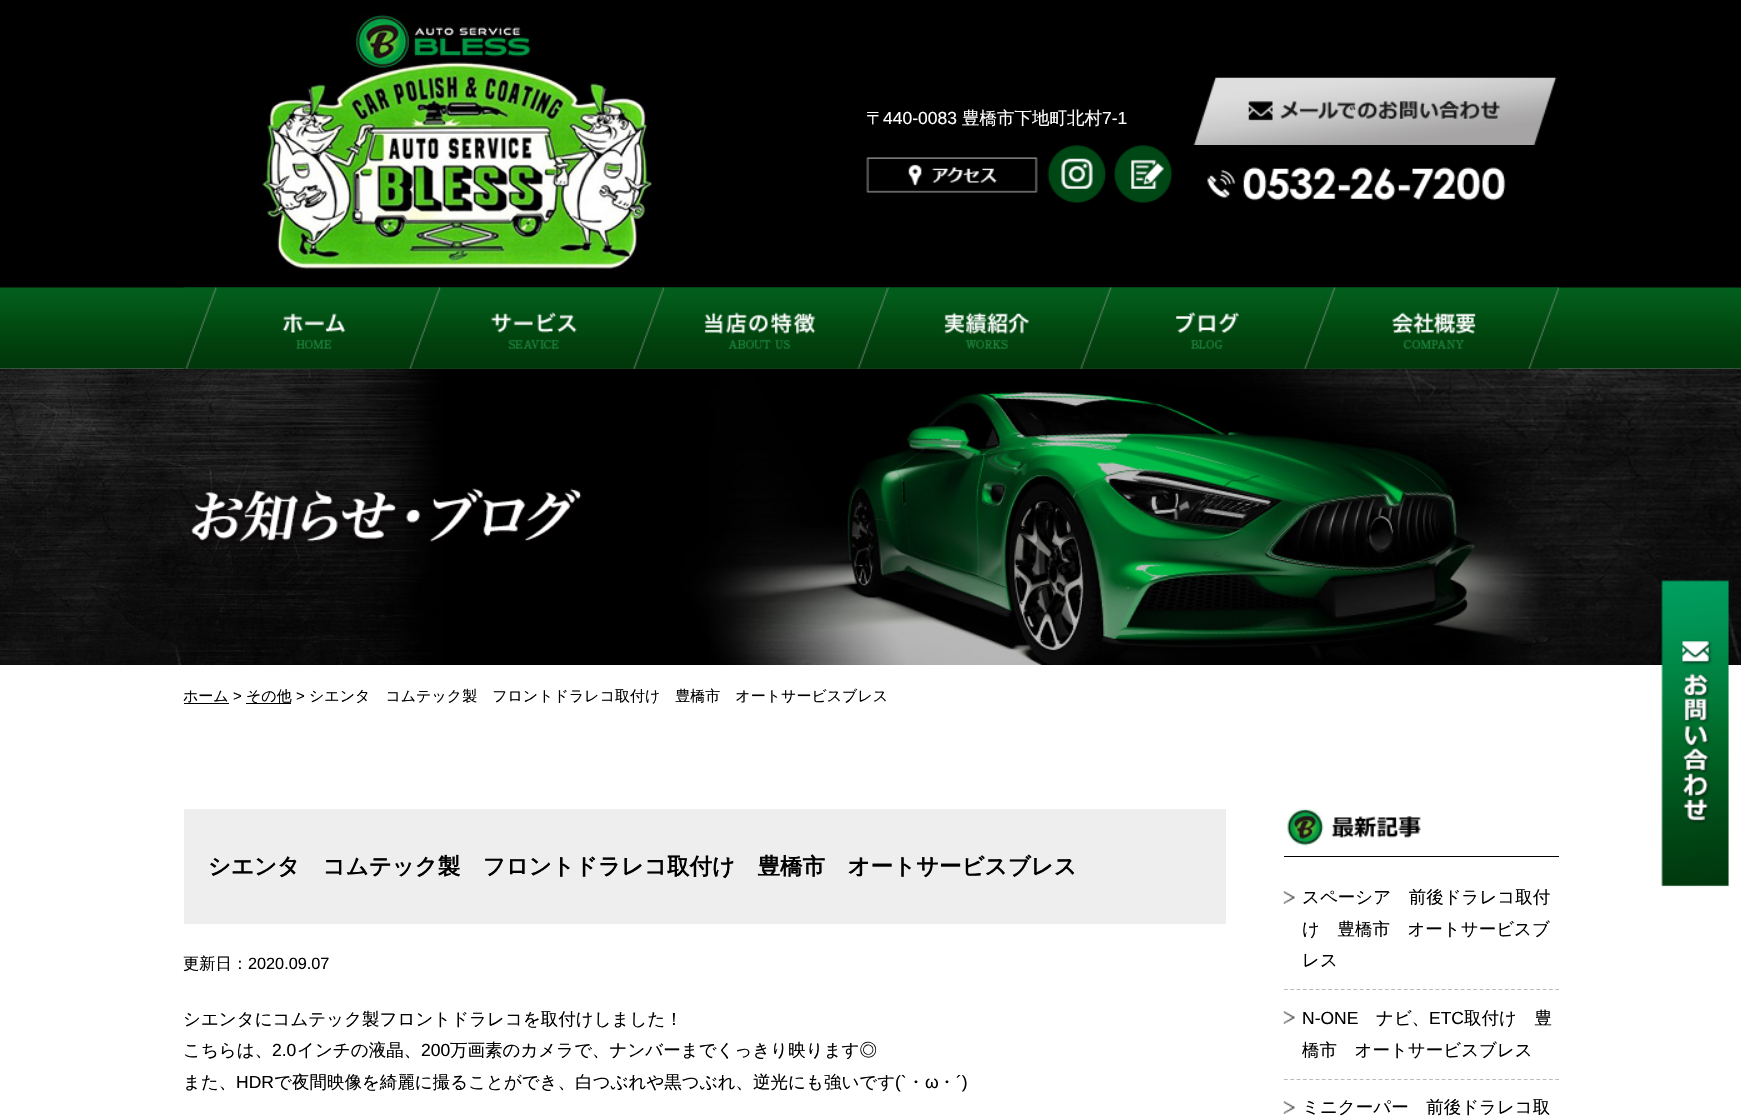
void draw(SkCanvas* canvas) {
	SkPaint paint;
	paint.setAntiAlias(true);
	auto svgPath = [&](const char* data, bool evenOdd = false) {
		SkPath result = *SkParsePath::FromSVGString(data);
		if (evenOdd) result.setFillType(SkPathFillType::kEvenOdd);
		return result;
	};
	canvas->clear(0xffffffff);
	paint.setColor(0xff000000);
	canvas->drawRect(SkRect::MakeXYWH(0, 0, 1741, 288), paint);
	canvas->drawImageRect(SkImages::DeferredFromEncodedData(SkData::MakeFromFileName("img1.png")), SkRect::MakeXYWH(259, 13, 393, 258), SkSamplingOptions());
	SkFont f1(fontMgr->matchFamilyStyle("WenQuanYi Zen Hei", SkFontStyle(500, SkFontStyle::kNormal_Width, SkFontStyle::kUpright_Slant)), 17.5);
	f1.setSubpixel(true);
	paint.setColor(0xffffffff);
	canvas->drawString("〒", 866, 124, f1, paint);
	SkFont f2(fontMgr->matchFamilyStyle("Liberation Sans", SkFontStyle::Normal()), 17.5);
	f2.setSubpixel(true);
	canvas->drawString("440-0083", 883, 124, f2, paint);
	canvas->drawString("豊橋市下地町北村", 962, 124, f1, paint);
	canvas->drawString("7-1", 1102, 124, f2, paint);
	canvas->drawImageRect(SkImages::DeferredFromEncodedData(SkData::MakeFromFileName("img2.png")), SkRect::MakeXYWH(1193, 77, 364, 68), SkSamplingOptions());
	canvas->drawImageRect(SkImages::DeferredFromEncodedData(SkData::MakeFromFileName("img3.png")), SkRect::MakeXYWH(866, 157, 172, 36), SkSamplingOptions());
	canvas->drawImageRect(SkImages::DeferredFromEncodedData(SkData::MakeFromFileName("img4.png")), SkRect::MakeXYWH(1047, 145, 60, 58), SkSamplingOptions());
	canvas->drawImageRect(SkImages::DeferredFromEncodedData(SkData::MakeFromFileName("img5.png")), SkRect::MakeXYWH(1113, 145, 60, 58), SkSamplingOptions());
	canvas->drawImageRect(SkImages::DeferredFromEncodedData(SkData::MakeFromFileName("img6.png")), SkRect::MakeXYWH(1207, 167, 299, 34), SkSamplingOptions());
	canvas->drawImageRect(SkImages::DeferredFromEncodedData(SkData::MakeFromFileName("img7.png")), SkRect::MakeXYWH(0, 287, 1741, 82), SkSamplingOptions());
	canvas->drawImageRect(SkImages::DeferredFromEncodedData(SkData::MakeFromFileName("img14.png")), SkRect::MakeXYWH(0, 368, 1741, 297), SkSamplingOptions());
	canvas->drawImageRect(SkImages::DeferredFromEncodedData(SkData::MakeFromFileName("img8.png")), SkRect::MakeXYWH(183, 287, 226, 82), SkSamplingOptions());
	canvas->drawImageRect(SkImages::DeferredFromEncodedData(SkData::MakeFromFileName("img9.png")), SkRect::MakeXYWH(409, 287, 225, 82), SkSamplingOptions());
	canvas->drawImageRect(SkImages::DeferredFromEncodedData(SkData::MakeFromFileName("img10.png")), SkRect::MakeXYWH(633, 287, 226, 82), SkSamplingOptions());
	canvas->drawImageRect(SkImages::DeferredFromEncodedData(SkData::MakeFromFileName("img11.png")), SkRect::MakeXYWH(858, 287, 224, 82), SkSamplingOptions());
	canvas->drawImageRect(SkImages::DeferredFromEncodedData(SkData::MakeFromFileName("img12.png")), SkRect::MakeXYWH(1081, 287, 223, 82), SkSamplingOptions());
	canvas->drawImageRect(SkImages::DeferredFromEncodedData(SkData::MakeFromFileName("img13.png")), SkRect::MakeXYWH(1304, 287, 255, 82), SkSamplingOptions());
	canvas->drawImageRect(SkImages::DeferredFromEncodedData(SkData::MakeFromFileName("img15.png")), SkRect::MakeXYWH(189, 488, 393, 58), SkSamplingOptions());
	SkFont f3(fontMgr->matchFamilyStyle("WenQuanYi Zen Hei", SkFontStyle(500, SkFontStyle::kNormal_Width, SkFontStyle::kUpright_Slant)), 15);
	f3.setSubpixel(true);
	paint.setColor(0xff000000);
	canvas->drawString("ホーム", 183, 701, f3, paint);
	canvas->drawRect(SkRect::MakeXYWH(184, 703, 45, 1), paint);
	SkFont f4(fontMgr->matchFamilyStyle("Liberation Sans", SkFontStyle::Normal()), 15);
	f4.setSubpixel(true);
	canvas->drawString(">", 233, 701, f4, paint);
	canvas->drawRect(SkRect::MakeXYWH(246, 703, 45, 1), paint);
	canvas->drawString("その他", 246, 701, f3, paint);
	canvas->drawString(">", 296, 701, f4, paint);
	canvas->drawString("シエンタ　コムテック製　フロントドラレコ取付け　豊橋市　オートサービスブレス", 309, 701, f3, paint);
	canvas->drawImageRect(SkImages::DeferredFromEncodedData(SkData::MakeFromFileName("img16.png")), SkRect::MakeXYWH(1661, 580, 68, 307), SkSamplingOptions());
	paint.setColor(0xffeeeeee);
	canvas->drawRect(SkRect::MakeXYWH(184, 809, 1042, 115), paint);
	SkFont f5(fontMgr->matchFamilyStyle("WenQuanYi Zen Hei", SkFontStyle::Bold()), 22.5);
	f5.setSubpixel(true);
	paint.setColor(0xff000000);
	canvas->drawString("シエンタ　コムテック製　フロントドラレコ取付け　豊橋市　オートサービスブレス", 208, 874, f5, paint);
	SkFont f6(fontMgr->matchFamilyStyle("WenQuanYi Zen Hei", SkFontStyle(500, SkFontStyle::kNormal_Width, SkFontStyle::kUpright_Slant)), 16.25);
	f6.setSubpixel(true);
	canvas->drawString("更新日：", 183, 969, f6, paint);
	SkFont f7(fontMgr->matchFamilyStyle("Liberation Sans", SkFontStyle::Normal()), 16.25);
	f7.setSubpixel(true);
	canvas->drawString("2020.09.07", 248, 969, f7, paint);
	canvas->drawString("シエンタにコムテック製フロントドラレコを取付けしました！", 183, 1025, f1, paint);
	canvas->drawString("こちらは、", 183, 1056, f1, paint);
	canvas->drawString("2.0", 272, 1056, f2, paint);
	canvas->drawString("インチの液晶、", 297, 1056, f1, paint);
	canvas->drawString("200", 421, 1056, f2, paint);
	canvas->drawString("万画素のカメラで、ナンバーまでくっきり映ります◎", 450, 1056, f1, paint);
	canvas->drawString("また、", 183, 1088, f1, paint);
	canvas->drawString("HDR", 236, 1088, f2, paint);
	canvas->drawString("で夜間映像を綺麗に撮ることができ、白つぶれや黒つぶれ、逆光にも強いです", 274, 1088, f1, paint);
	canvas->drawString("(`", 895, 1088, f2, paint);
	canvas->drawString("・", 907, 1088, f1, paint);
	canvas->drawString("ω", 925, 1088, f2, paint);
	canvas->drawString("・", 938, 1088, f1, paint);
	canvas->drawString("´)", 956, 1088, f2, paint);
	canvas->drawRect(SkRect::MakeXYWH(1284, 856, 275, 1), paint);
	canvas->drawImageRect(SkImages::DeferredFromEncodedData(SkData::MakeFromFileName("img17.png")), SkRect::MakeXYWH(1287, 809, 134, 37), SkSamplingOptions());
	canvas->drawImageRect(SkImages::DeferredFromEncodedData(SkData::MakeFromFileName("img18.png")), SkRect::MakeXYWH(1283, 891, 12, 13), SkSamplingOptions());
	paint.setStroke(true);
	paint.setStrokeWidth(1.2);
	paint.setColor(0xffbababa);
	paint.setPathEffect(SkDashPathEffect::Make({{3.75f, 2.56f}}, 0));
	canvas->drawPath(svgPath("M1284 989.5H1559"), paint);
	paint.setPathEffect(nullptr);
	paint.setStroke(false);
	paint.setColor(0xff000000);
	canvas->drawString("スペーシア　前後ドラレコ取付", 1302, 903, f1, paint);
	canvas->drawString("け　豊橋市　オートサービスブ", 1302, 935, f1, paint);
	canvas->drawString("レス", 1302, 966, f1, paint);
	canvas->drawImageRect(SkImages::DeferredFromEncodedData(SkData::MakeFromFileName("img18.png")), SkRect::MakeXYWH(1283, 1011, 12, 13), SkSamplingOptions());
	paint.setStroke(true);
	paint.setColor(0xffbababa);
	paint.setPathEffect(SkDashPathEffect::Make({{3.75f, 2.56f}}, 0));
	canvas->drawPath(svgPath("M1284 1079.5H1559"), paint);
	paint.setPathEffect(nullptr);
	paint.setStroke(false);
	paint.setColor(0xff000000);
	canvas->drawString("N-ONE", 1302, 1024, f2, paint);
	canvas->drawString("ナビ、", 1376, 1024, f1, paint);
	canvas->drawString("ETC", 1429, 1024, f2, paint);
	canvas->drawString("取付け　豊", 1464, 1024, f1, paint);
	canvas->drawString("橋市　オートサービスブレス", 1302, 1056, f1, paint);
	canvas->drawImageRect(SkImages::DeferredFromEncodedData(SkData::MakeFromFileName("img18.png")), SkRect::MakeXYWH(1283, 1101, 12, 13), SkSamplingOptions());
	canvas->drawString("ミニクーパー　前後ドラレコ取", 1302, 1113, f1, paint);
}
